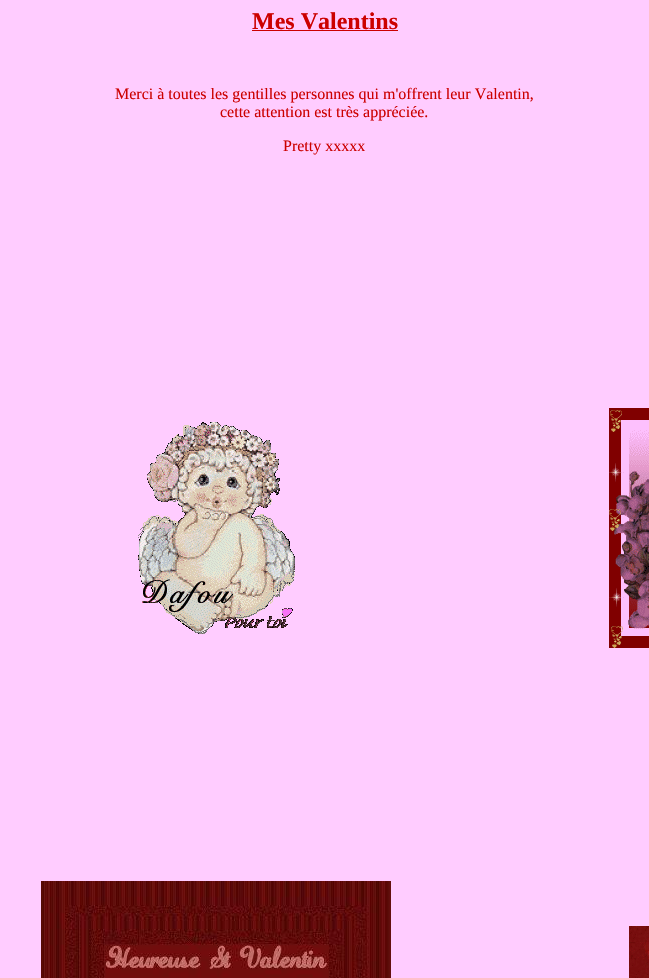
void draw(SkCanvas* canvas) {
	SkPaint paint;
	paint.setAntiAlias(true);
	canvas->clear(0xffffccff);
	SkFont f1(fontMgr->matchFamilyStyle("Liberation Serif", SkFontStyle::Bold()), 24);
	f1.setSubpixel(true);
	paint.setColor(0xffcc0000);
	canvas->drawString("Mes Valentins", 252, 29, f1, paint);
	canvas->drawRect(SkRect::MakeXYWH(252, 30, 146, 1), paint);
	SkFont f2(fontMgr->matchFamilyStyle("Liberation Serif", SkFontStyle::Normal()), 16);
	f2.setSubpixel(true);
	canvas->drawString("Merci à toutes les gentilles personnes qui m'offrent leur Valentin,", 115, 99, f2, paint);
	canvas->drawString("cette attention est très appréciée.", 220, 117, f2, paint);
	canvas->drawString("Pretty xxxxx", 283, 151, f2, paint);
	canvas->drawImageRect(SkImages::DeferredFromEncodedData(SkData::MakeFromFileName("img1.png")), SkRect::MakeXYWH(138, 422, 157, 212), SkSamplingOptions());
	canvas->drawImageRect(SkImages::DeferredFromEncodedData(SkData::MakeFromFileName("img2.png")), SkRect::MakeXYWH(609, 408, 40, 240), SkSamplingOptions());
	canvas->drawImageRect(SkImages::DeferredFromEncodedData(SkData::MakeFromFileName("img3.png")), SkRect::MakeXYWH(41, 881, 350, 97), SkSamplingOptions());
	canvas->drawImageRect(SkImages::DeferredFromEncodedData(SkData::MakeFromFileName("img4.png")), SkRect::MakeXYWH(629, 926, 20, 52), SkSamplingOptions());
}
